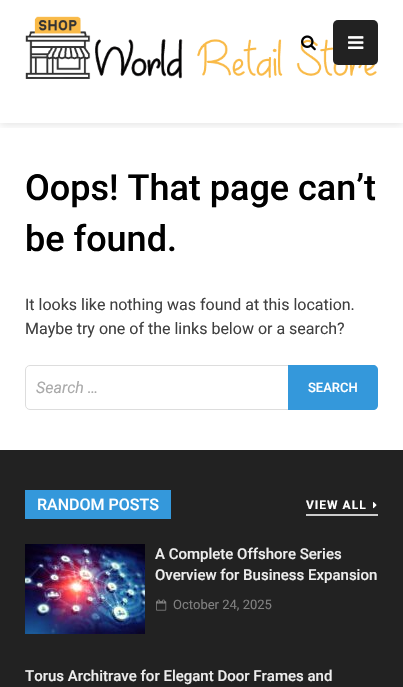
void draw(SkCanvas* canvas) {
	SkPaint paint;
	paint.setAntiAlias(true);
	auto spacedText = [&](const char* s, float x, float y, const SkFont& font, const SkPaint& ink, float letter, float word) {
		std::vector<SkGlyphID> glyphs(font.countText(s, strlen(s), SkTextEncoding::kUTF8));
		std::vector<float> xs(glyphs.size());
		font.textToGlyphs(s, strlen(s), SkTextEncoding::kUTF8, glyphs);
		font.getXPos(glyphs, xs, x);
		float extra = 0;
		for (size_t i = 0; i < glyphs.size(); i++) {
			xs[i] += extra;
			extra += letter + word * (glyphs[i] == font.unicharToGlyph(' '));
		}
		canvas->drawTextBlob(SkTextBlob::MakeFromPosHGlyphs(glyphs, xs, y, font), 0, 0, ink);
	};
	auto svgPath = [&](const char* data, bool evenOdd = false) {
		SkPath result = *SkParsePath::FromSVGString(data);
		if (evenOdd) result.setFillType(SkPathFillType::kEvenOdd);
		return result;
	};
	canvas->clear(0xffffffff);
	canvas->save();
	canvas->clipRect(SkRect::MakeXYWH(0, 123, 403, 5));
	paint.setColor(0x1a000000);
	paint.setMaskFilter(SkMaskFilter::MakeBlur(kNormal_SkBlurStyle, 4));
	canvas->drawRect(SkRect::MakeXYWH(0, 2, 403, 123), paint);
	paint.setMaskFilter(nullptr);
	canvas->restore();
	canvas->drawImageRect(SkImages::DeferredFromEncodedData(SkData::MakeFromFileName("img1.png")), SkRect::MakeXYWH(25, 16, 352, 63), SkSamplingOptions());
	canvas->drawImageRect(SkImages::DeferredFromEncodedData(SkData::MakeFromFileName("img2.png")), SkRect::MakeXYWH(301, 35, 15, 16), SkSamplingOptions());
	paint.setColor(0xff222222);
	canvas->drawRoundRect(SkRect::MakeXYWH(333, 20, 45, 45), 5, 5, paint);
	canvas->drawImageRect(SkImages::DeferredFromEncodedData(SkData::MakeFromFileName("img3.png")), SkRect::MakeXYWH(348, 36, 16, 13), SkSamplingOptions());
	SkFont f1(fontMgr->matchFamilyStyle("Roboto", SkFontStyle(500, SkFontStyle::kNormal_Width, SkFontStyle::kUpright_Slant)), 36);
	f1.setSubpixel(true);
	paint.setColor(0xff000000);
	canvas->drawString("Oops! That page can’t", 25, 200, f1, paint);
	canvas->drawString("be found.", 25, 251, f1, paint);
	SkFont f2(fontMgr->matchFamilyStyle("Roboto", SkFontStyle::Normal()), 16);
	f2.setSubpixel(true);
	paint.setColor(0xff404040);
	canvas->drawString("It looks like nothing was found at this location.", 25, 310, f2, paint);
	canvas->drawString("Maybe try one of the links below or a search?", 25, 334, f2, paint);
	paint.setStroke(true);
	paint.setStrokeWidth(1);
	paint.setColor(0xffdddddd);
	canvas->drawRoundRect(SkRect::MakeXYWH(25.5, 365.5, 352, 44), 4.5, 4.5, paint);
	SkFont f3(fontMgr->matchFamilyStyle("Roboto", SkFontStyle::Italic()), 16);
	f3.setSubpixel(true);
	paint.setStroke(false);
	paint.setColor(0xffaaaaaa);
	canvas->drawString("Search …", 36, 393, f3, paint);
	paint.setColor(0xff3498db);
	canvas->drawPath(svgPath("M288 365H373C376 365 378 367 378 370V405C378 408 376 410 373 410H288Z"), paint);
	SkFont f4(fontMgr->matchFamilyStyle("Roboto", SkFontStyle(500, SkFontStyle::kNormal_Width, SkFontStyle::kUpright_Slant)), 13);
	f4.setSubpixel(true);
	paint.setColor(0xffffffff);
	canvas->drawString("SEARCH", 308, 392, f4, paint);
	paint.setColor(0xff222222);
	canvas->drawRect(SkRect::MakeXYWH(0, 450, 403, 237), paint);
	paint.setColor(0xff3498db);
	canvas->drawRect(SkRect::MakeXYWH(25, 490, 146, 29), paint);
	SkFont f5(fontMgr->matchFamilyStyle("Roboto", SkFontStyle(500, SkFontStyle::kNormal_Width, SkFontStyle::kUpright_Slant)), 16);
	f5.setSubpixel(true);
	paint.setColor(0xffffffff);
	canvas->drawString("RANDOM POSTS", 37, 510, f5, paint);
	paint.setColor(0xffcccccc);
	canvas->drawRect(SkRect::MakeXYWH(306, 514, 72, 2), paint);
	SkFont f6(fontMgr->matchFamilyStyle("Roboto", SkFontStyle::Bold()), 12);
	f6.setSubpixel(true);
	paint.setColor(0xffffffff);
	spacedText("VIEW ALL", 306, 509, f6, paint, 1, 0);
	canvas->drawImageRect(SkImages::DeferredFromEncodedData(SkData::MakeFromFileName("img4.png")), SkRect::MakeXYWH(373, 502, 4, 7), SkSamplingOptions());
	canvas->drawImageRect(SkImages::DeferredFromEncodedData(SkData::MakeFromFileName("img5.png")), SkRect::MakeXYWH(25, 544, 120, 90), SkSamplingOptions());
	SkFont f7(fontMgr->matchFamilyStyle("Roboto", SkFontStyle(500, SkFontStyle::kNormal_Width, SkFontStyle::kUpright_Slant)), 15);
	f7.setSubpixel(true);
	paint.setColor(0xffeeeeee);
	canvas->drawString("A Complete Offshore Series", 155, 559, f7, paint);
	canvas->drawString("Overview for Business Expansion", 155, 580, f7, paint);
	canvas->drawImageRect(SkImages::DeferredFromEncodedData(SkData::MakeFromFileName("img6.png")), SkRect::MakeXYWH(156, 599, 11, 12), SkSamplingOptions());
	SkFont f8(fontMgr->matchFamilyStyle("Roboto", SkFontStyle::Normal()), 13);
	f8.setSubpixel(true);
	paint.setColor(0xff808080);
	canvas->drawString("October 24, 2025", 173, 609, f8, paint);
	paint.setColor(0xffeeeeee);
	canvas->drawString("Torus Architrave for Elegant Door Frames and", 25, 681, f7, paint);
}
